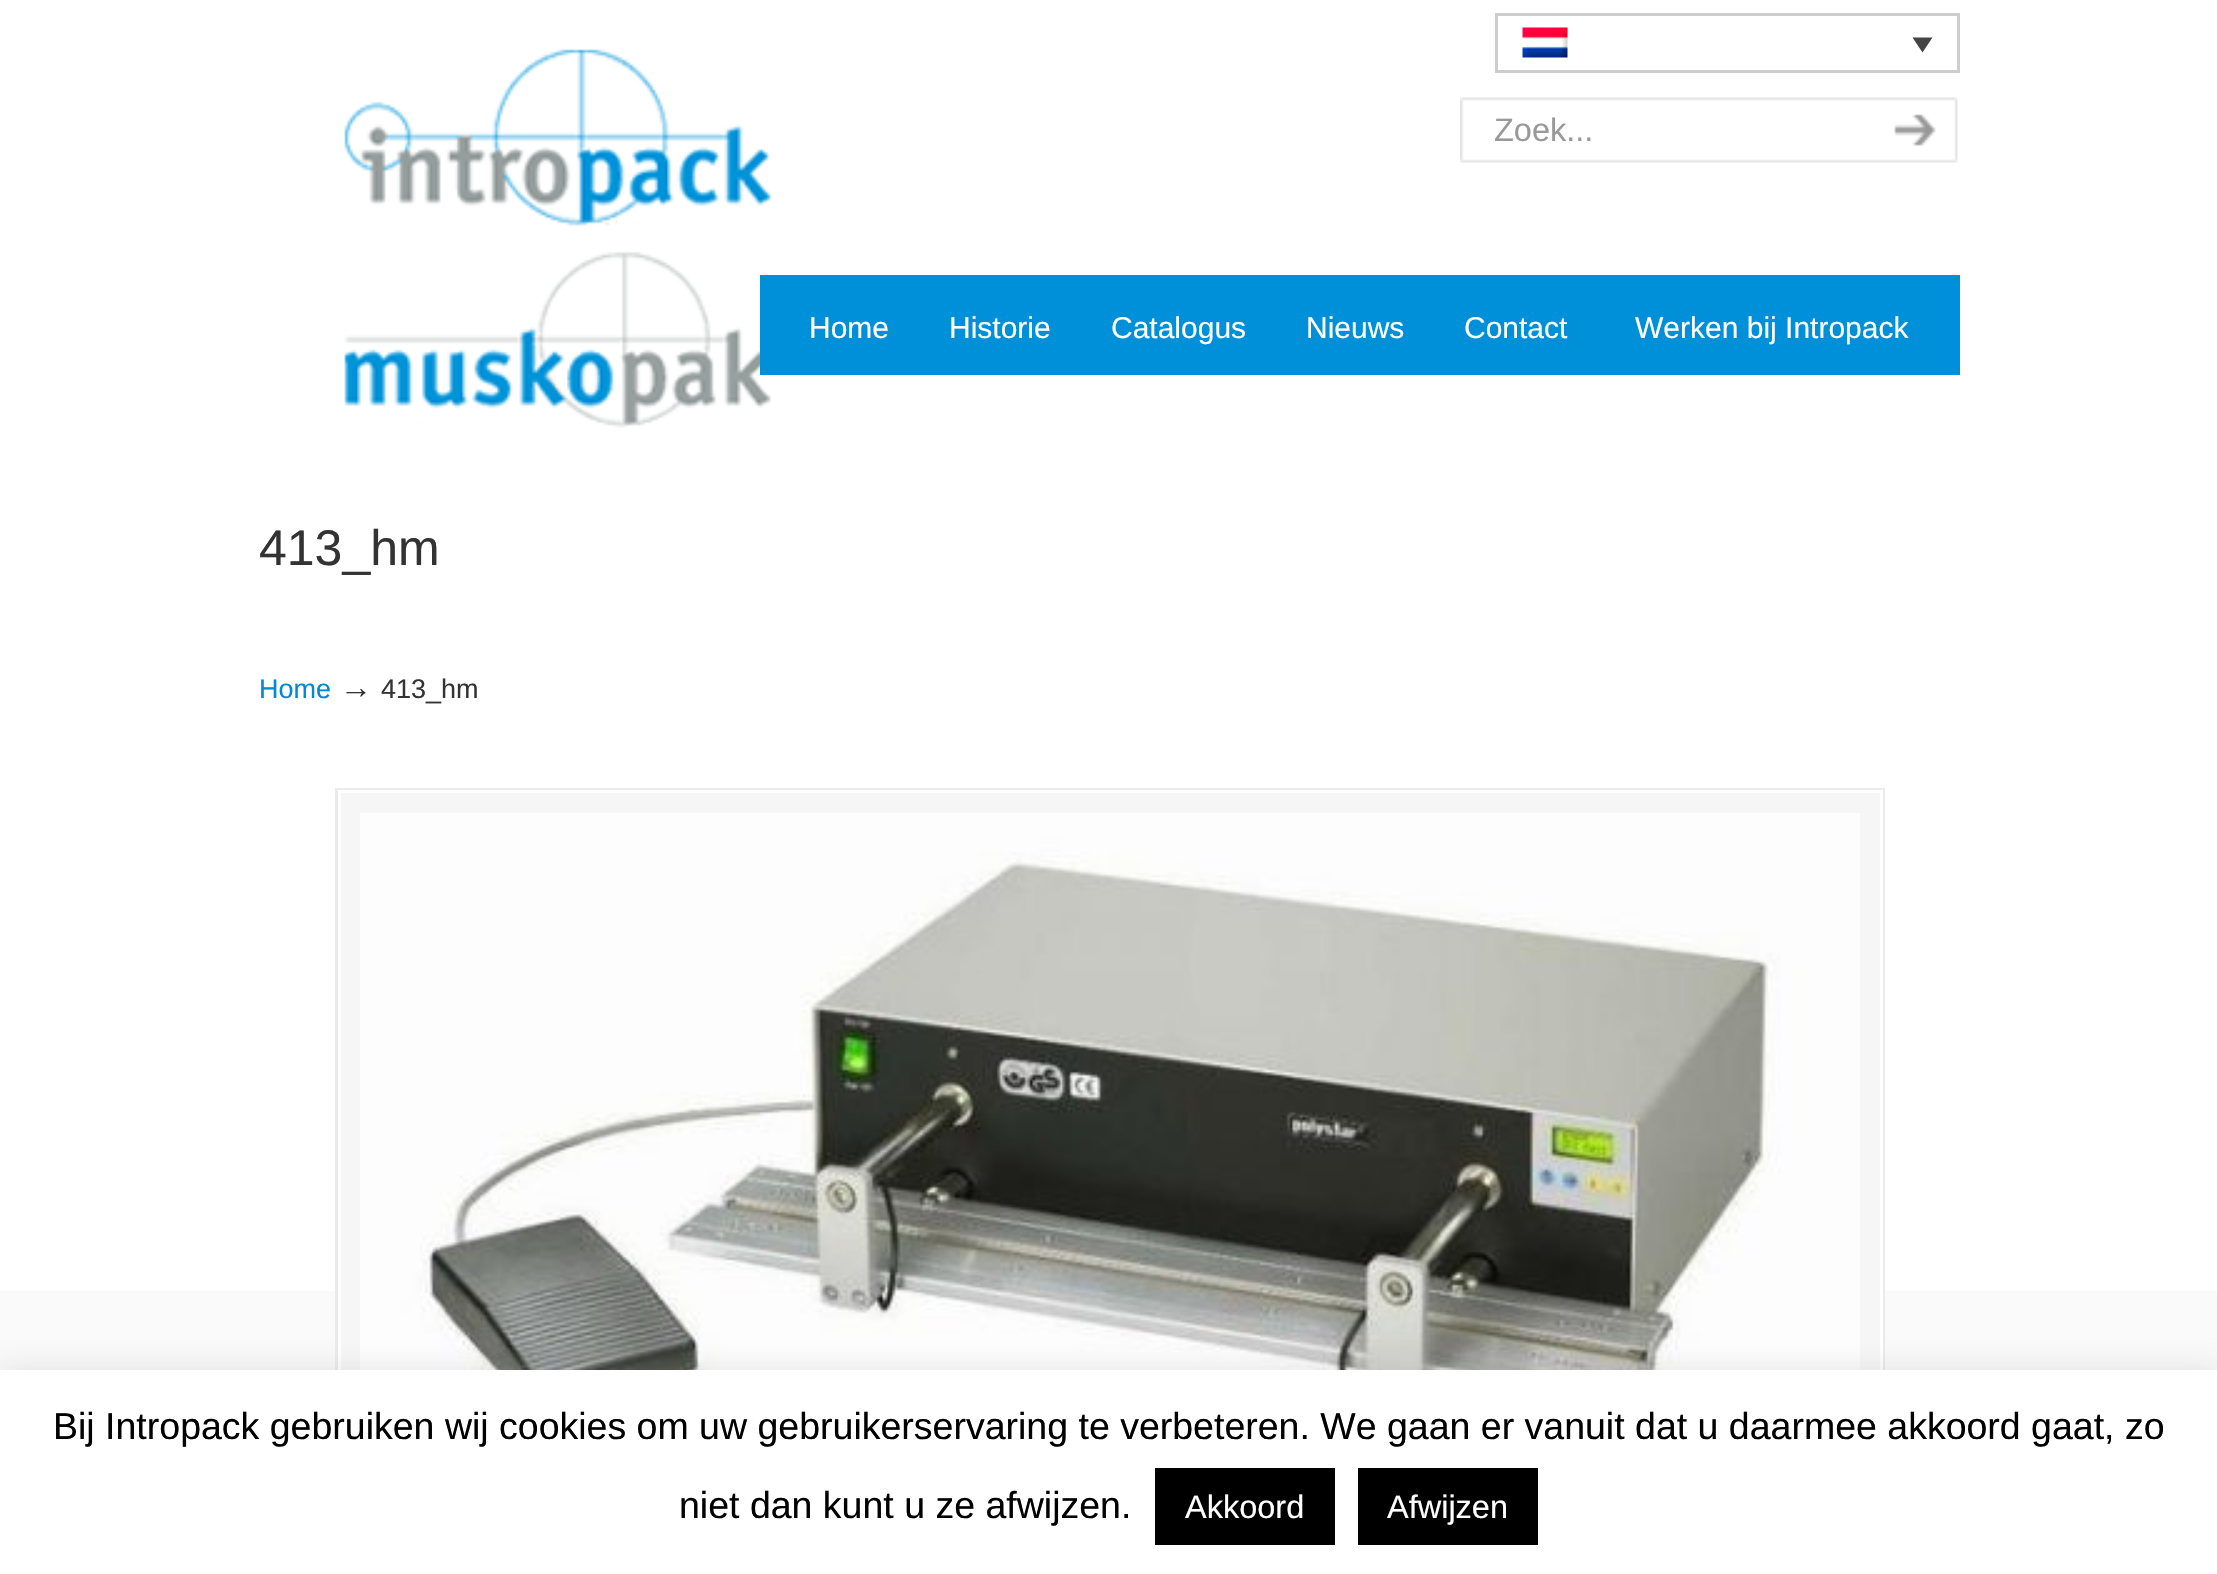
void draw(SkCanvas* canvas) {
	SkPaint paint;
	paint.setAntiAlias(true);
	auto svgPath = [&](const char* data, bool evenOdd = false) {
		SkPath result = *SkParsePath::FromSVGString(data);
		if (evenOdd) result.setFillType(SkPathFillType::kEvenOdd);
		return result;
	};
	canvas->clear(0xffffffff);
	paint.setStroke(true);
	paint.setStrokeWidth(3);
	paint.setColor(0xffcdcdcd);
	canvas->drawRect(SkRect::MakeXYWH(1496.5, 14.5, 462, 57), paint);
	canvas->drawImageRect(SkImages::DeferredFromEncodedData(SkData::MakeFromFileName("img1.png")), SkRect::MakeXYWH(1522, 27, 46, 31), SkSamplingOptions());
	paint.setStroke(false);
	paint.setColor(0xff444444);
	canvas->drawPath(svgPath("M1912.5 37.5H1932.5L1922.5 52.5Z"), paint);
	canvas->drawImageRect(SkImages::DeferredFromEncodedData(SkData::MakeFromFileName("img2.png")), SkRect::MakeXYWH(344, 49, 427, 379), SkSamplingOptions());
	canvas->drawImageRect(SkImages::DeferredFromEncodedData(SkData::MakeFromFileName("img3.png")), SkRect::MakeXYWH(1460, 97, 398, 66), SkSamplingOptions());
	canvas->save();
	canvas->clipRect(SkRect::MakeXYWH(1495, 113, 363, 37));
	SkFont f1(fontMgr->matchFamilyStyle("Liberation Sans", SkFontStyle::Normal()), 32.5);
	f1.setSubpixel(true);
	paint.setColor(0xff999999);
	canvas->drawString("Zoek...", 1494, 141, f1, paint);
	canvas->restore();
	canvas->drawImageRect(SkImages::DeferredFromEncodedData(SkData::MakeFromFileName("img4.png")), SkRect::MakeXYWH(1857, 97, 101, 66), SkSamplingOptions());
	paint.setColor(0xff0090da);
	canvas->drawRect(SkRect::MakeXYWH(760, 275, 1200, 100), paint);
	SkFont f2(fontMgr->matchFamilyStyle("Liberation Sans", SkFontStyle::Normal()), 30);
	f2.setSubpixel(true);
	paint.setColor(0xffffffff);
	canvas->drawString("Home", 809, 338, f2, paint);
	canvas->drawString("Historie", 949, 338, f2, paint);
	canvas->drawString("Catalogus", 1111, 338, f2, paint);
	canvas->drawString("Nieuws", 1306, 338, f2, paint);
	canvas->drawString("Contact", 1464, 338, f2, paint);
	canvas->drawString("Werken bij Intropack", 1635, 338, f2, paint);
	SkFont f3(fontMgr->matchFamilyStyle("Liberation Sans", SkFontStyle::Normal()), 50);
	f3.setSubpixel(true);
	paint.setColor(0xff333333);
	canvas->drawString("413_hm", 259, 565, f3, paint);
	canvas->drawImageRect(SkImages::DeferredFromEncodedData(SkData::MakeFromFileName("img5.png")), SkRect::MakeXYWH(0, 1291, 2217, 79), SkSamplingOptions());
	SkFont f4(fontMgr->matchFamilyStyle("Liberation Sans", SkFontStyle::Normal()), 27);
	f4.setSubpixel(true);
	paint.setColor(0xff0089d4);
	canvas->drawString("Home", 259, 698, f4, paint);
	SkFont f5(fontMgr->matchFamilyStyle("Liberation Sans", SkFontStyle::Normal()), 32);
	f5.setSubpixel(true);
	paint.setColor(0xff333333);
	canvas->drawString("→", 340, 698, f5, paint);
	canvas->drawString("413_hm", 381, 698, f4, paint);
	paint.setColor(0xfff6f6f6);
	canvas->drawRect(SkRect::MakeXYWH(341, 793, 1539, 577), paint);
	paint.setStroke(true);
	paint.setColor(0xffeaeaea);
	canvas->drawRect(SkRect::MakeXYWH(336.5, 789.5, 1547, 717), paint);
	paint.setColor(0xffffffff);
	canvas->drawRect(SkRect::MakeXYWH(339.5, 791.5, 1542, 712), paint);
	canvas->drawImageRect(SkImages::DeferredFromEncodedData(SkData::MakeFromFileName("img6.png")), SkRect::MakeXYWH(360, 813, 1500, 557), SkSamplingOptions());
	paint.setStroke(false);
	paint.setColor(0x4dacabab);
	paint.setMaskFilter(SkMaskFilter::MakeBlur(kNormal_SkBlurStyle, 12.5));
	canvas->drawRect(SkRect::MakeXYWH(0, 1368, 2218, 205), paint);
	paint.setMaskFilter(nullptr);
	paint.setColor(0xffffffff);
	canvas->drawRect(SkRect::MakeXYWH(0, 1370, 2217, 204), paint);
	SkFont f6(fontMgr->matchFamilyStyle("Liberation Sans", SkFontStyle::Normal()), 37.5);
	f6.setSubpixel(true);
	paint.setColor(0xff000000);
	canvas->drawString("Bij Intropack gebruiken wij cookies om uw gebruikerservaring te verbeteren. We gaan er vanuit dat u daarmee akkoord gaat, zo", 53, 1439, f6, paint);
	canvas->drawString("niet dan kunt u ze afwijzen.", 679, 1518, f6, paint);
	canvas->drawRect(SkRect::MakeXYWH(1155, 1468, 180, 77), paint);
	paint.setColor(0xffffffff);
	canvas->drawString("Akkoord", 1185, 1518, f1, paint);
	paint.setColor(0xff000000);
	canvas->drawRect(SkRect::MakeXYWH(1358, 1468, 180, 77), paint);
	paint.setColor(0xffffffff);
	canvas->drawString("Afwijzen", 1387, 1518, f1, paint);
}
